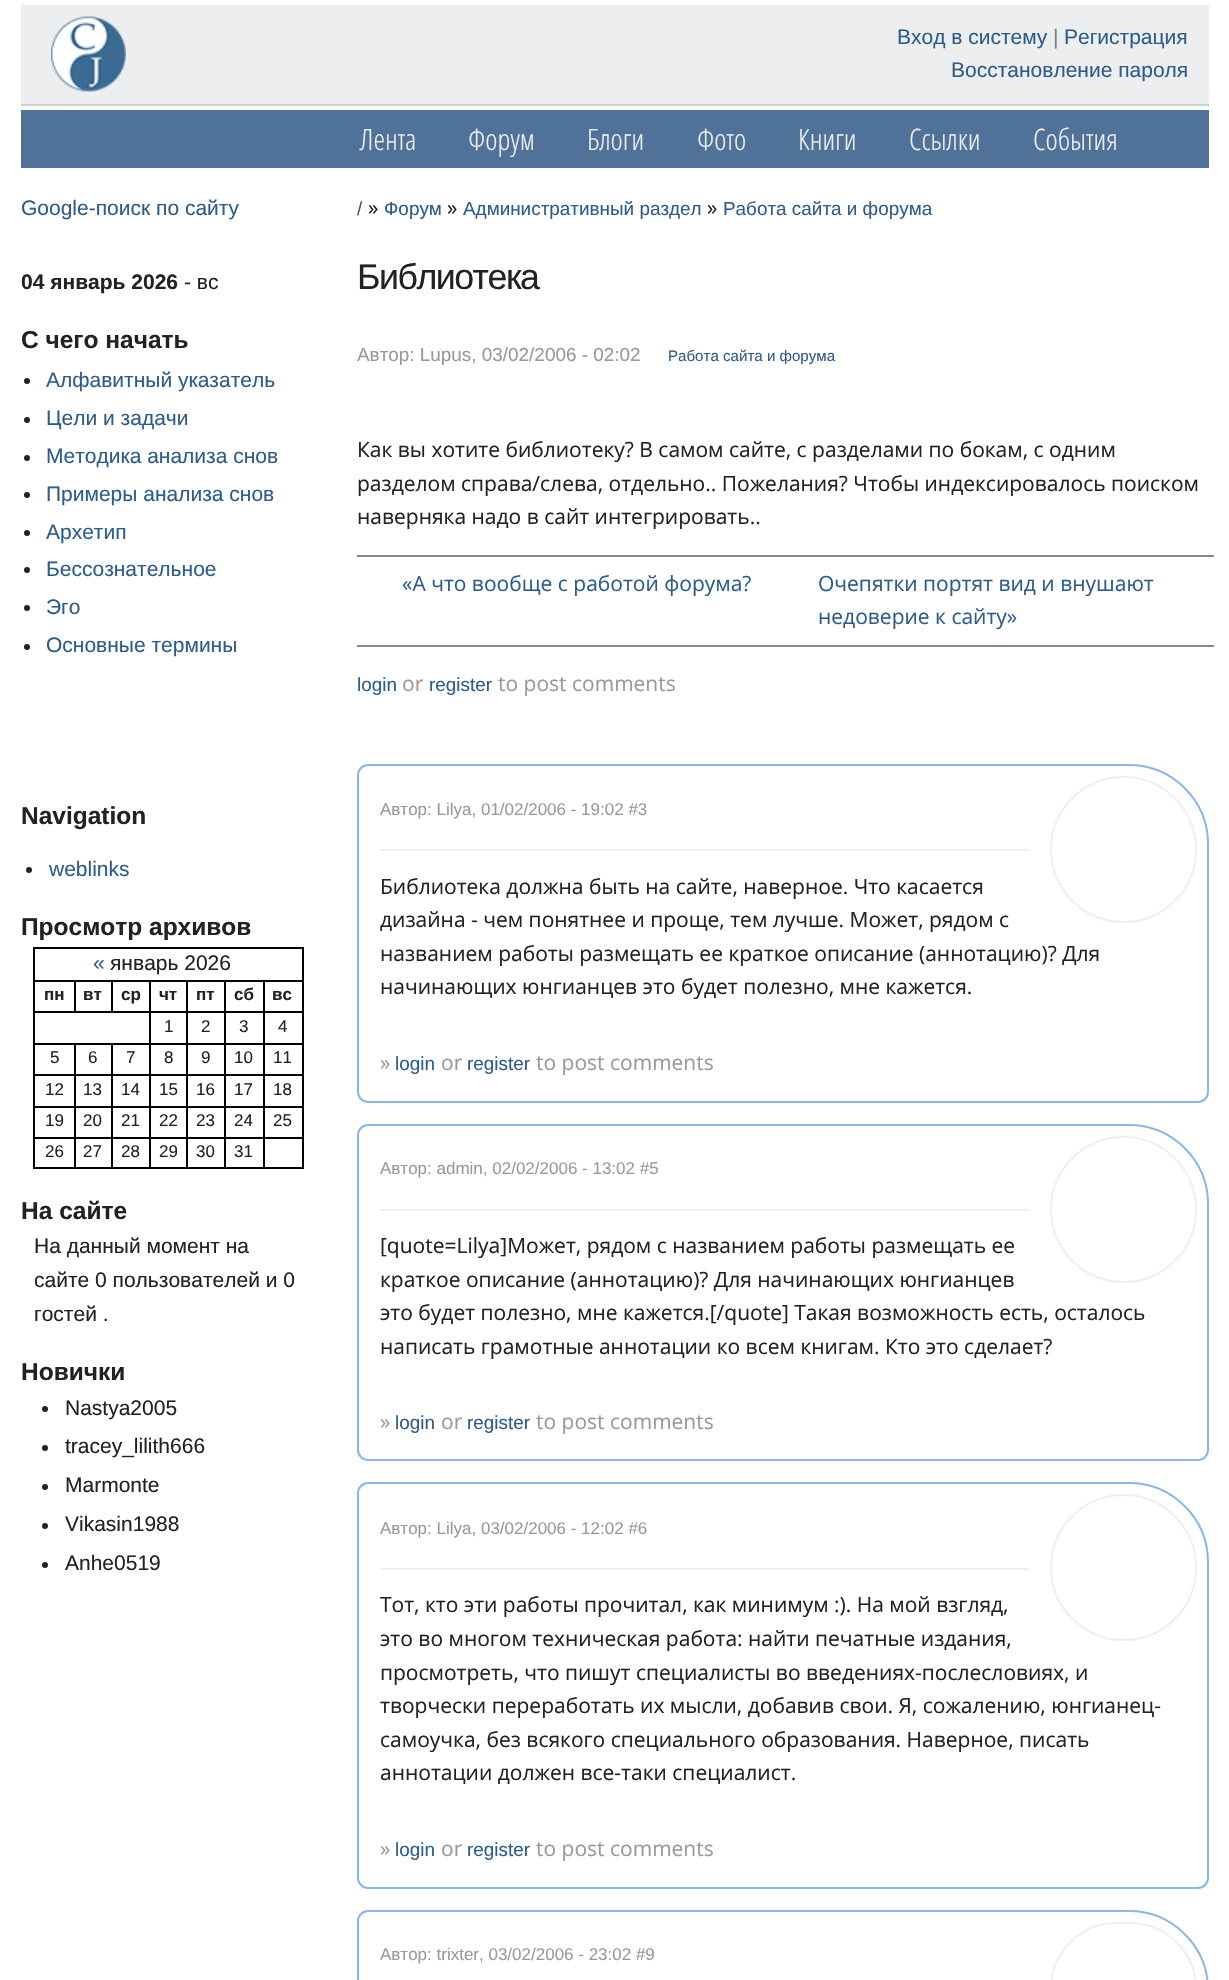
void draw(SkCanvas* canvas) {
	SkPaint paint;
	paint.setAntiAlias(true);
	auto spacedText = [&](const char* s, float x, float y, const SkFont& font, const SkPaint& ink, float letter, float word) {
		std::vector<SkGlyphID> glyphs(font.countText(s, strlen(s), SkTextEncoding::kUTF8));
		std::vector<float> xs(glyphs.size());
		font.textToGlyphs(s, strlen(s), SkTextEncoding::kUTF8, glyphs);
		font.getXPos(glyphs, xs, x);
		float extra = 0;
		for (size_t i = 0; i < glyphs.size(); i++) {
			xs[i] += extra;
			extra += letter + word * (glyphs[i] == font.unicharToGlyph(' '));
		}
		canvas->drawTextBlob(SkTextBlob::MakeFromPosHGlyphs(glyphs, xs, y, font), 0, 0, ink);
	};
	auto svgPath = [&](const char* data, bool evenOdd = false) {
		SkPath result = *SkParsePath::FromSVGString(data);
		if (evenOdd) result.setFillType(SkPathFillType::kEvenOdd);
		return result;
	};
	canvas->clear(0xffffffff);
	paint.setColor(0xffedeef0);
	canvas->drawRect(SkRect::MakeXYWH(21, 5, 1188, 99), paint);
	paint.setColor(0xffcccccc);
	canvas->drawRect(SkRect::MakeXYWH(21, 104, 1188, 2), paint);
	canvas->drawImageRect(SkImages::DeferredFromEncodedData(SkData::MakeFromFileName("img1.png")), SkRect::MakeXYWH(51, 16, 75, 76), SkSamplingOptions());
	SkFont f1(fontMgr->matchFamilyStyle("Liberation Sans", SkFontStyle::Normal()), 21);
	f1.setSubpixel(true);
	paint.setColor(0xff2d5c8c);
	canvas->drawString("Вход в систему", 897, 44, f1, paint);
	paint.setColor(0xff808080);
	canvas->drawString("|", 1053, 44, f1, paint);
	paint.setColor(0xff2d5c8c);
	canvas->drawString("Регистрация", 1064, 44, f1, paint);
	canvas->drawString("Восстановление пароля", 951, 77, f1, paint);
	paint.setColor(0xff507299);
	canvas->drawRect(SkRect::MakeXYWH(21, 110, 1188, 58), paint);
	SkFont f2(fontMgr->matchFamilyStyle("Open Sans Condensed", SkFontStyle(300, SkFontStyle::kNormal_Width, SkFontStyle::kUpright_Slant)), 29.5);
	f2.setSubpixel(true);
	paint.setColor(0xffedeef0);
	canvas->drawString("Лента", 360, 150, f2, paint);
	canvas->drawString("Форум", 468, 150, f2, paint);
	canvas->drawString("Блоги", 587, 150, f2, paint);
	canvas->drawString("Фото", 697, 150, f2, paint);
	canvas->drawString("Книги", 798, 150, f2, paint);
	canvas->drawString("Ссылки", 909, 150, f2, paint);
	canvas->drawString("События", 1033, 150, f2, paint);
	paint.setColor(0xff2d5c8c);
	canvas->drawString("Google-поиск по сайту", 21, 215, f1, paint);
	SkFont f3(fontMgr->matchFamilyStyle("Liberation Sans", SkFontStyle::Bold()), 21);
	f3.setSubpixel(true);
	paint.setColor(0xff222222);
	canvas->drawString("04 январь 2026", 21, 289, f3, paint);
	canvas->drawString("- вс", 184, 289, f1, paint);
	SkFont f4(fontMgr->matchFamilyStyle("Liberation Sans", SkFontStyle::Bold()), 24.5);
	f4.setSubpixel(true);
	canvas->drawString("С чего начать", 21, 348, f4, paint);
	canvas->drawCircle(27, 381, 3, paint);
	paint.setColor(0xff2d5c8c);
	canvas->drawString("Алфавитный указатель", 46, 387, f1, paint);
	paint.setColor(0xff222222);
	canvas->drawCircle(27, 420, 3, paint);
	paint.setColor(0xff2d5c8c);
	canvas->drawString("Цели и задачи", 46, 425, f1, paint);
	paint.setColor(0xff222222);
	canvas->drawCircle(27, 458, 3, paint);
	paint.setColor(0xff2d5c8c);
	canvas->drawString("Методика анализа снов", 46, 463, f1, paint);
	paint.setColor(0xff222222);
	canvas->drawCircle(27, 495, 3, paint);
	paint.setColor(0xff2d5c8c);
	canvas->drawString("Примеры анализа снов", 46, 501, f1, paint);
	paint.setColor(0xff222222);
	canvas->drawCircle(27, 533, 3, paint);
	paint.setColor(0xff2d5c8c);
	canvas->drawString("Архетип", 46, 539, f1, paint);
	paint.setColor(0xff222222);
	canvas->drawCircle(27, 570, 3, paint);
	paint.setColor(0xff2d5c8c);
	canvas->drawString("Бессознательное", 46, 576, f1, paint);
	paint.setColor(0xff222222);
	canvas->drawCircle(27, 608, 3, paint);
	paint.setColor(0xff2d5c8c);
	canvas->drawString("Эго", 46, 614, f1, paint);
	paint.setColor(0xff222222);
	canvas->drawCircle(27, 647, 3, paint);
	paint.setColor(0xff2d5c8c);
	canvas->drawString("Основные термины", 46, 652, f1, paint);
	paint.setColor(0xff222222);
	canvas->drawString("Navigation", 21, 824, f4, paint);
	canvas->drawCircle(29, 870, 3, paint);
	paint.setColor(0xff2d5c8c);
	canvas->drawString("weblinks", 49, 876, f1, paint);
	paint.setColor(0xff222222);
	canvas->drawString("Просмотр архивов", 21, 935, f4, paint);
	paint.setColor(0xff000000);
	canvas->drawRect(SkRect::MakeXYWH(33, 947, 270, 2), paint);
	canvas->drawRect(SkRect::MakeXYWH(302, 947, 2, 222), paint);
	canvas->drawRect(SkRect::MakeXYWH(33, 1167, 270, 2), paint);
	canvas->drawRect(SkRect::MakeXYWH(33, 947, 2, 222), paint);
	paint.setColor(0xff2d5c8c);
	canvas->drawString("«", 93, 970, f1, paint);
	paint.setColor(0xff222222);
	canvas->drawString("январь 2026", 110, 970, f1, paint);
	paint.setColor(0xff000000);
	canvas->drawRect(SkRect::MakeXYWH(263, 980, 40, 2), paint);
	canvas->drawRect(SkRect::MakeXYWH(263, 1011, 40, 2), paint);
	canvas->drawRect(SkRect::MakeXYWH(263, 1043, 40, 2), paint);
	canvas->drawRect(SkRect::MakeXYWH(263, 1074, 40, 2), paint);
	canvas->drawRect(SkRect::MakeXYWH(263, 1106, 40, 2), paint);
	canvas->drawRect(SkRect::MakeXYWH(224, 1137, 40, 2), paint);
	canvas->drawRect(SkRect::MakeXYWH(263, 1137, 2, 32), paint);
	canvas->drawRect(SkRect::MakeXYWH(263, 1137, 40, 2), paint);
	canvas->drawRect(SkRect::MakeXYWH(263, 1106, 2, 33), paint);
	canvas->drawRect(SkRect::MakeXYWH(224, 1106, 40, 2), paint);
	canvas->drawRect(SkRect::MakeXYWH(263, 1074, 2, 33), paint);
	canvas->drawRect(SkRect::MakeXYWH(224, 1074, 40, 2), paint);
	canvas->drawRect(SkRect::MakeXYWH(263, 1043, 2, 33), paint);
	canvas->drawRect(SkRect::MakeXYWH(224, 1043, 40, 2), paint);
	canvas->drawRect(SkRect::MakeXYWH(263, 1011, 2, 33), paint);
	canvas->drawRect(SkRect::MakeXYWH(224, 1011, 40, 2), paint);
	canvas->drawRect(SkRect::MakeXYWH(263, 980, 2, 33), paint);
	canvas->drawRect(SkRect::MakeXYWH(224, 980, 40, 2), paint);
	canvas->drawRect(SkRect::MakeXYWH(224, 1137, 2, 32), paint);
	canvas->drawRect(SkRect::MakeXYWH(186, 1137, 39, 2), paint);
	canvas->drawRect(SkRect::MakeXYWH(224, 1106, 2, 33), paint);
	canvas->drawRect(SkRect::MakeXYWH(186, 1106, 39, 2), paint);
	canvas->drawRect(SkRect::MakeXYWH(224, 1074, 2, 33), paint);
	canvas->drawRect(SkRect::MakeXYWH(186, 1074, 39, 2), paint);
	canvas->drawRect(SkRect::MakeXYWH(224, 1043, 2, 33), paint);
	canvas->drawRect(SkRect::MakeXYWH(186, 1043, 39, 2), paint);
	canvas->drawRect(SkRect::MakeXYWH(224, 1011, 2, 33), paint);
	canvas->drawRect(SkRect::MakeXYWH(186, 1011, 39, 2), paint);
	canvas->drawRect(SkRect::MakeXYWH(224, 980, 2, 33), paint);
	canvas->drawRect(SkRect::MakeXYWH(186, 980, 39, 2), paint);
	canvas->drawRect(SkRect::MakeXYWH(186, 1137, 2, 32), paint);
	canvas->drawRect(SkRect::MakeXYWH(149, 1137, 39, 2), paint);
	canvas->drawRect(SkRect::MakeXYWH(186, 1106, 2, 33), paint);
	canvas->drawRect(SkRect::MakeXYWH(149, 1106, 39, 2), paint);
	canvas->drawRect(SkRect::MakeXYWH(186, 1074, 2, 33), paint);
	canvas->drawRect(SkRect::MakeXYWH(149, 1074, 39, 2), paint);
	canvas->drawRect(SkRect::MakeXYWH(186, 1043, 2, 33), paint);
	canvas->drawRect(SkRect::MakeXYWH(149, 1043, 39, 2), paint);
	canvas->drawRect(SkRect::MakeXYWH(186, 1011, 2, 33), paint);
	canvas->drawRect(SkRect::MakeXYWH(149, 1011, 39, 2), paint);
	canvas->drawRect(SkRect::MakeXYWH(186, 980, 2, 33), paint);
	canvas->drawRect(SkRect::MakeXYWH(149, 980, 39, 2), paint);
	canvas->drawRect(SkRect::MakeXYWH(149, 1137, 2, 32), paint);
	canvas->drawRect(SkRect::MakeXYWH(111, 1137, 39, 2), paint);
	canvas->drawRect(SkRect::MakeXYWH(149, 1106, 2, 33), paint);
	canvas->drawRect(SkRect::MakeXYWH(111, 1106, 39, 2), paint);
	canvas->drawRect(SkRect::MakeXYWH(149, 1074, 2, 33), paint);
	canvas->drawRect(SkRect::MakeXYWH(111, 1074, 39, 2), paint);
	canvas->drawRect(SkRect::MakeXYWH(149, 1043, 2, 33), paint);
	canvas->drawRect(SkRect::MakeXYWH(111, 1043, 39, 2), paint);
	canvas->drawRect(SkRect::MakeXYWH(149, 1011, 2, 33), paint);
	canvas->drawRect(SkRect::MakeXYWH(149, 980, 2, 33), paint);
	canvas->drawRect(SkRect::MakeXYWH(111, 980, 39, 2), paint);
	canvas->drawRect(SkRect::MakeXYWH(111, 1011, 39, 2), paint);
	canvas->drawRect(SkRect::MakeXYWH(111, 980, 2, 33), paint);
	canvas->drawRect(SkRect::MakeXYWH(74, 980, 39, 2), paint);
	canvas->drawRect(SkRect::MakeXYWH(74, 1011, 39, 2), paint);
	canvas->drawRect(SkRect::MakeXYWH(74, 980, 2, 33), paint);
	canvas->drawRect(SkRect::MakeXYWH(33, 980, 42, 2), paint);
	canvas->drawRect(SkRect::MakeXYWH(33, 1011, 42, 2), paint);
	SkFont f5(fontMgr->matchFamilyStyle("Liberation Sans", SkFontStyle::Bold()), 17);
	f5.setSubpixel(true);
	paint.setColor(0xff222222);
	canvas->drawString("пн", 44, 1000, f5, paint);
	canvas->drawString("вт", 83, 1000, f5, paint);
	canvas->drawString("ср", 121, 1000, f5, paint);
	canvas->drawString("чт", 159, 1000, f5, paint);
	canvas->drawString("пт", 196, 1000, f5, paint);
	canvas->drawString("сб", 234, 1000, f5, paint);
	canvas->drawString("вс", 272, 1000, f5, paint);
	SkFont f6(fontMgr->matchFamilyStyle("Liberation Sans", SkFontStyle::Normal()), 17);
	f6.setSubpixel(true);
	canvas->drawString("1", 164, 1032, f6, paint);
	canvas->drawString("2", 201, 1032, f6, paint);
	canvas->drawString("3", 239, 1032, f6, paint);
	canvas->drawString("4", 278, 1032, f6, paint);
	paint.setColor(0xff000000);
	canvas->drawRect(SkRect::MakeXYWH(111, 1137, 2, 32), paint);
	canvas->drawRect(SkRect::MakeXYWH(74, 1137, 39, 2), paint);
	canvas->drawRect(SkRect::MakeXYWH(111, 1106, 2, 33), paint);
	canvas->drawRect(SkRect::MakeXYWH(74, 1106, 39, 2), paint);
	canvas->drawRect(SkRect::MakeXYWH(111, 1074, 2, 33), paint);
	canvas->drawRect(SkRect::MakeXYWH(74, 1074, 39, 2), paint);
	canvas->drawRect(SkRect::MakeXYWH(111, 1043, 2, 33), paint);
	canvas->drawRect(SkRect::MakeXYWH(74, 1043, 39, 2), paint);
	canvas->drawRect(SkRect::MakeXYWH(74, 1137, 2, 32), paint);
	canvas->drawRect(SkRect::MakeXYWH(33, 1137, 42, 2), paint);
	canvas->drawRect(SkRect::MakeXYWH(74, 1106, 2, 33), paint);
	canvas->drawRect(SkRect::MakeXYWH(33, 1106, 42, 2), paint);
	canvas->drawRect(SkRect::MakeXYWH(74, 1074, 2, 33), paint);
	canvas->drawRect(SkRect::MakeXYWH(33, 1074, 42, 2), paint);
	canvas->drawRect(SkRect::MakeXYWH(74, 1043, 2, 33), paint);
	canvas->drawRect(SkRect::MakeXYWH(33, 1043, 42, 2), paint);
	paint.setColor(0xff222222);
	canvas->drawString("5", 50, 1063, f6, paint);
	canvas->drawString("6", 88, 1063, f6, paint);
	canvas->drawString("7", 126, 1063, f6, paint);
	canvas->drawString("8", 164, 1063, f6, paint);
	canvas->drawString("9", 201, 1063, f6, paint);
	canvas->drawString("10", 234, 1063, f6, paint);
	canvas->drawString("11", 273, 1063, f6, paint);
	canvas->drawString("12", 45, 1095, f6, paint);
	canvas->drawString("13", 83, 1095, f6, paint);
	canvas->drawString("14", 121, 1095, f6, paint);
	canvas->drawString("15", 159, 1095, f6, paint);
	canvas->drawString("16", 196, 1095, f6, paint);
	canvas->drawString("17", 234, 1095, f6, paint);
	canvas->drawString("18", 273, 1095, f6, paint);
	canvas->drawString("19", 45, 1126, f6, paint);
	canvas->drawString("20", 83, 1126, f6, paint);
	canvas->drawString("21", 121, 1126, f6, paint);
	canvas->drawString("22", 159, 1126, f6, paint);
	canvas->drawString("23", 196, 1126, f6, paint);
	canvas->drawString("24", 234, 1126, f6, paint);
	canvas->drawString("25", 273, 1126, f6, paint);
	canvas->drawString("26", 45, 1157, f6, paint);
	canvas->drawString("27", 83, 1157, f6, paint);
	canvas->drawString("28", 121, 1157, f6, paint);
	canvas->drawString("29", 159, 1157, f6, paint);
	canvas->drawString("30", 196, 1157, f6, paint);
	canvas->drawString("31", 234, 1157, f6, paint);
	canvas->drawString("На сайте", 21, 1219, f4, paint);
	canvas->drawString("На данный момент на", 34, 1253, f1, paint);
	canvas->drawString("сайте 0 пользователей и 0", 34, 1287, f1, paint);
	canvas->drawString("гостей .", 34, 1321, f1, paint);
	canvas->drawString("Новички", 21, 1380, f4, paint);
	canvas->drawCircle(45, 1409, 3, paint);
	canvas->drawString("Nastya2005", 65, 1415, f1, paint);
	canvas->drawCircle(45, 1448, 3, paint);
	canvas->drawString("tracey_lilith666", 65, 1453, f1, paint);
	canvas->drawCircle(45, 1487, 3, paint);
	canvas->drawString("Marmonte", 65, 1492, f1, paint);
	canvas->drawCircle(45, 1526, 3, paint);
	canvas->drawString("Vikasin1988", 65, 1531, f1, paint);
	canvas->drawCircle(45, 1565, 3, paint);
	canvas->drawString("Anhe0519", 65, 1570, f1, paint);
	SkFont f7(fontMgr->matchFamilyStyle("Liberation Sans", SkFontStyle::Normal()), 18.9);
	f7.setSubpixel(true);
	paint.setColor(0xff2d5c8c);
	canvas->drawString("/", 357, 215, f7, paint);
	SkFont f8(fontMgr->matchFamilyStyle("Open Sans", SkFontStyle::Normal()), 21);
	f8.setSubpixel(true);
	paint.setColor(0xff222222);
	canvas->drawString("»", 368, 215, f8, paint);
	paint.setColor(0xff2d5c8c);
	canvas->drawString("Форум", 384, 215, f7, paint);
	paint.setColor(0xff222222);
	canvas->drawString("»", 447, 215, f8, paint);
	paint.setColor(0xff2d5c8c);
	canvas->drawString("Административный раздел", 463, 215, f7, paint);
	paint.setColor(0xff222222);
	canvas->drawString("»", 707, 215, f8, paint);
	paint.setColor(0xff2d5c8c);
	canvas->drawString("Работа сайта и форума", 723, 215, f7, paint);
	SkFont f9(fontMgr->matchFamilyStyle("Liberation Sans", SkFontStyle::Normal()), 35.75);
	f9.setSubpixel(true);
	paint.setColor(0xff222222);
	spacedText("Библиотека", 357, 289, f9, paint, -1.5, 0);
	paint.setColor(0xff999999);
	canvas->drawString("Автор: Lupus, 03/02/2006 - 02:02", 357, 361, f7, paint);
	SkFont f10(fontMgr->matchFamilyStyle("Liberation Sans", SkFontStyle::Normal()), 15.1);
	f10.setSubpixel(true);
	paint.setColor(0xff2d5c8c);
	canvas->drawString("Работа сайта и форума", 668, 361, f10, paint);
	paint.setColor(0xff222222);
	canvas->drawString("Как вы хотите библиотеку? В самом сайте, с разделами по бокам, с одним", 357, 457, f8, paint);
	canvas->drawString("разделом справа/слева, отдельно.. Пожелания? Чтобы индексировалось поиском", 357, 491, f8, paint);
	canvas->drawString("наверняка надо в сайт интегрировать..", 357, 524, f8, paint);
	paint.setColor(0xff888888);
	canvas->drawRect(SkRect::MakeXYWH(357, 555, 857, 2), paint);
	canvas->drawRect(SkRect::MakeXYWH(357, 645, 857, 2), paint);
	paint.setColor(0xff2d5c8c);
	canvas->drawString("«А что вообще с работой форума?", 402, 591, f8, paint);
	canvas->drawString("Очепятки портят вид и внушают", 818, 591, f8, paint);
	canvas->drawString("недоверие к сайту»", 818, 624, f8, paint);
	canvas->drawString("login", 357, 691, f7, paint);
	paint.setColor(0xff999999);
	canvas->drawString("or", 402, 691, f8, paint);
	paint.setColor(0xff2d5c8c);
	canvas->drawString("register", 429, 691, f7, paint);
	paint.setColor(0xff999999);
	canvas->drawString("to post comments", 498, 691, f8, paint);
	paint.setStroke(true);
	paint.setStrokeWidth(2);
	paint.setColor(0xff87b7e8);
	canvas->drawPath(svgPath("M368 765H1129C1172.5 765 1208 800.5 1208 844V1092C1208 1097.5 1203.5 1102 1198 1102H368C362.5 1102 358 1097.5 358 1092V775C358 769.5 362.5 765 368 765Z"), paint);
	paint.setStroke(false);
	paint.setColor(0xfff0f0f0);
	canvas->drawRect(SkRect::MakeXYWH(380, 849, 649, 2), paint);
	paint.setColor(0xff999999);
	canvas->drawString("Автор: Lilya, 01/02/2006 - 19:02 #3", 380, 815, f6, paint);
	paint.setColor(0xff222222);
	canvas->drawString("Библиотека должна быть на сайте, наверное. Что касается", 380, 894, f8, paint);
	canvas->drawString("дизайна - чем понятнее и проще, тем лучше. Может, рядом с", 380, 927, f8, paint);
	canvas->drawString("названием работы размещать ее краткое описание (аннотацию)? Для", 380, 961, f8, paint);
	canvas->drawString("начинающих юнгианцев это будет полезно, мне кажется.", 380, 994, f8, paint);
	paint.setStroke(true);
	paint.setColor(0xffefefef);
	canvas->drawCircle(1123.5, 849.5, 72.5, paint);
	paint.setStroke(false);
	paint.setColor(0xff999999);
	canvas->drawString("»", 380, 1070, f8, paint);
	paint.setColor(0xff2d5c8c);
	canvas->drawString("login", 395, 1070, f7, paint);
	paint.setColor(0xff999999);
	canvas->drawString("or", 441, 1070, f8, paint);
	paint.setColor(0xff2d5c8c);
	canvas->drawString("register", 467, 1070, f7, paint);
	paint.setColor(0xff999999);
	canvas->drawString("to post comments", 536, 1070, f8, paint);
	paint.setStroke(true);
	paint.setColor(0xff87b7e8);
	canvas->drawPath(svgPath("M368 1125H1129C1172.5 1125 1208 1160.5 1208 1204V1450C1208 1455.5 1203.5 1460 1198 1460H368C362.5 1460 358 1455.5 358 1450V1135C358 1129.5 362.5 1125 368 1125Z"), paint);
	paint.setColor(0xffefefef);
	canvas->drawCircle(1123.5, 1209.5, 72.5, paint);
	paint.setStroke(false);
	paint.setColor(0xfff0f0f0);
	canvas->drawRect(SkRect::MakeXYWH(380, 1209, 649, 2), paint);
	paint.setColor(0xff999999);
	canvas->drawString("Автор: admin, 02/02/2006 - 13:02 #5", 380, 1174, f6, paint);
	paint.setColor(0xff222222);
	canvas->drawString("[quote=Lilya]Может, рядом с названием работы размещать ее", 380, 1253, f8, paint);
	canvas->drawString("краткое описание (аннотацию)? Для начинающих юнгианцев", 380, 1287, f8, paint);
	canvas->drawString("это будет полезно, мне кажется.[/quote] Такая возможность есть, осталось", 380, 1320, f8, paint);
	canvas->drawString("написать грамотные аннотации ко всем книгам. Кто это сделает?", 380, 1354, f8, paint);
	paint.setColor(0xff999999);
	canvas->drawString("»", 380, 1429, f8, paint);
	paint.setColor(0xff2d5c8c);
	canvas->drawString("login", 395, 1429, f7, paint);
	paint.setColor(0xff999999);
	canvas->drawString("or", 441, 1429, f8, paint);
	paint.setColor(0xff2d5c8c);
	canvas->drawString("register", 467, 1429, f7, paint);
	paint.setColor(0xff999999);
	canvas->drawString("to post comments", 536, 1429, f8, paint);
	paint.setStroke(true);
	paint.setColor(0xff87b7e8);
	canvas->drawPath(svgPath("M368 1483H1129C1172.5 1483 1208 1518.5 1208 1562V1878C1208 1883.5 1203.5 1888 1198 1888H368C362.5 1888 358 1883.5 358 1878V1493C358 1487.5 362.5 1483 368 1483Z"), paint);
	paint.setColor(0xffefefef);
	canvas->drawCircle(1123.5, 1567.5, 72.5, paint);
	paint.setStroke(false);
	paint.setColor(0xfff0f0f0);
	canvas->drawRect(SkRect::MakeXYWH(380, 1568, 649, 2), paint);
	paint.setColor(0xff999999);
	canvas->drawString("Автор: Lilya, 03/02/2006 - 12:02 #6", 380, 1534, f6, paint);
	paint.setColor(0xff222222);
	canvas->drawString("Тот, кто эти работы прочитал, как минимум :). На мой взгляд,", 380, 1612, f8, paint);
	canvas->drawString("это во многом техническая работа: найти печатные издания,", 380, 1646, f8, paint);
	canvas->drawString("просмотреть, что пишут специалисты во введениях-послесловиях, и", 380, 1680, f8, paint);
	canvas->drawString("творчески переработать их мысли, добавив свои. Я, сожалению, юнгианец-", 380, 1713, f8, paint);
	canvas->drawString("самоучка, без всякого специального образования. Наверное, писать", 380, 1747, f8, paint);
	canvas->drawString("аннотации должен все-таки специалист.", 380, 1780, f8, paint);
	paint.setColor(0xff999999);
	canvas->drawString("»", 380, 1856, f8, paint);
	paint.setColor(0xff2d5c8c);
	canvas->drawString("login", 395, 1856, f7, paint);
	paint.setColor(0xff999999);
	canvas->drawString("or", 441, 1856, f8, paint);
	paint.setColor(0xff2d5c8c);
	canvas->drawString("register", 467, 1856, f7, paint);
	paint.setColor(0xff999999);
	canvas->drawString("to post comments", 536, 1856, f8, paint);
	paint.setStroke(true);
	paint.setColor(0xff87b7e8);
	canvas->drawPath(svgPath("M368 1911H1129C1172.5 1911 1208 1946.5 1208 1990V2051C1208 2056.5 1203.5 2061 1198 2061H368C362.5 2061 358 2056.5 358 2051V1921C358 1915.5 362.5 1911 368 1911Z"), paint);
	paint.setStroke(false);
	paint.setColor(0xff999999);
	canvas->drawString("Автор: trixter, 03/02/2006 - 23:02 #9", 380, 1960, f6, paint);
	paint.setStroke(true);
	paint.setColor(0xffefefef);
	canvas->drawRoundRect(SkRect::MakeXYWH(1051, 1923, 145, 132), 72.5, 72.5, paint);
}
